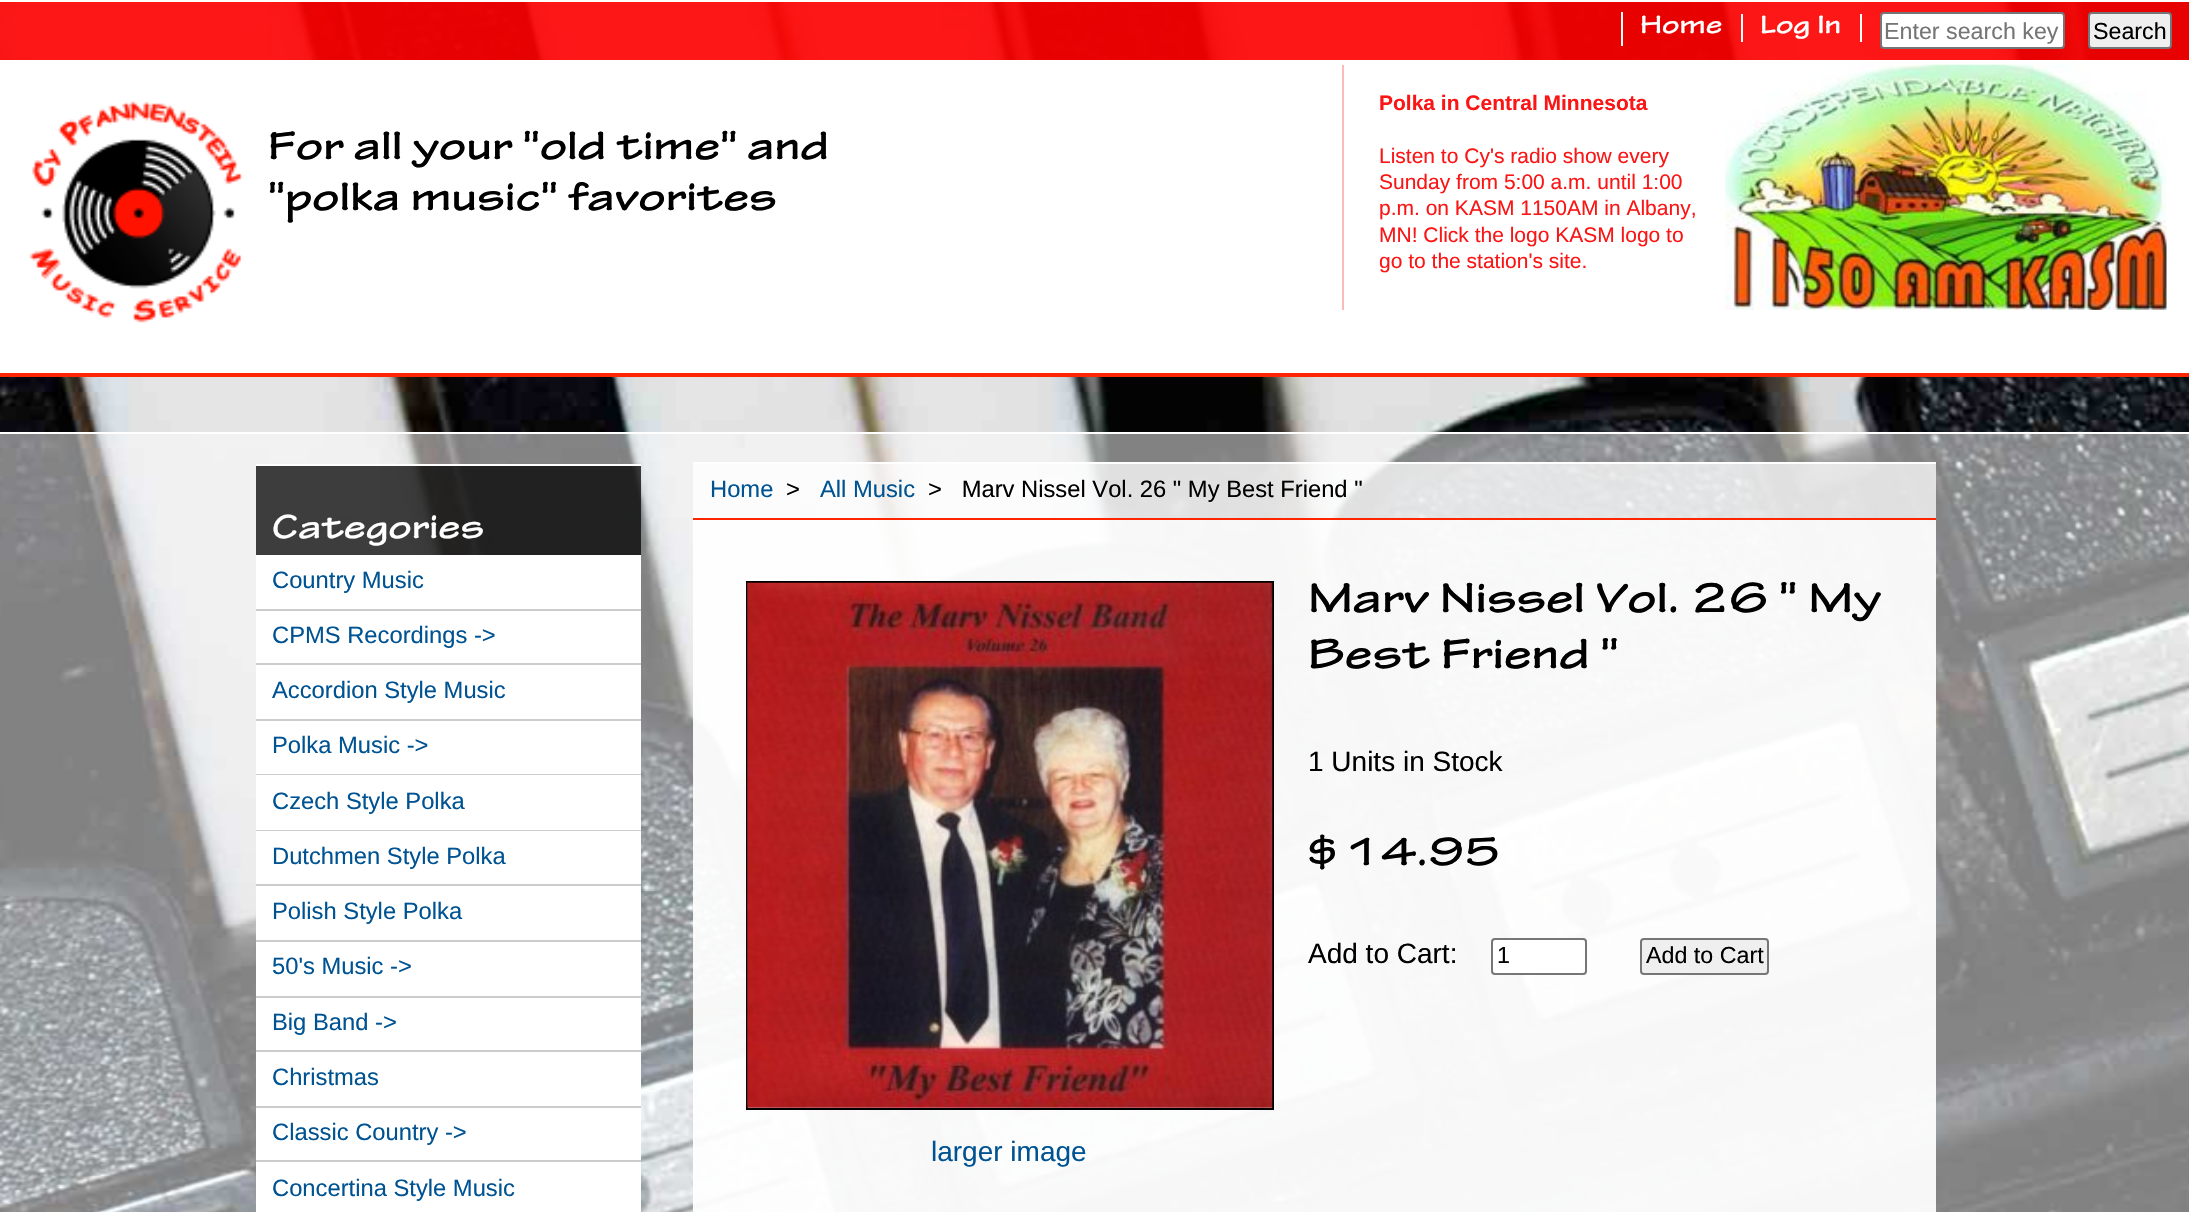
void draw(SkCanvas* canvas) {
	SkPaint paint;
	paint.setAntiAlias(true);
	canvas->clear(0xffffffff);
	canvas->drawImageRect(SkImages::DeferredFromEncodedData(SkData::MakeFromFileName("img1.png")), SkRect::MakeXYWH(0, 2, 2189, 1210), SkSamplingOptions());
	paint.setColor(0xe6ff0000);
	canvas->drawRect(SkRect::MakeXYWH(0, 2, 2189, 58), paint);
	paint.setColor(0xffffffff);
	canvas->drawRect(SkRect::MakeXYWH(1621, 12, 2, 34), paint);
	SkFont f1(fontMgr->matchFamilyStyle("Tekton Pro", SkFontStyle::Bold()), 27);
	f1.setSubpixel(true);
	canvas->drawString("Home", 1640, 33, f1, paint);
	canvas->drawRect(SkRect::MakeXYWH(1741, 14, 2, 28), paint);
	canvas->drawString("Log In", 1760, 33, f1, paint);
	canvas->drawRect(SkRect::MakeXYWH(1860, 14, 2, 28), paint);
	canvas->drawRoundRect(SkRect::MakeXYWH(1881, 13, 183, 35), 3, 3, paint);
	paint.setStroke(true);
	paint.setStrokeWidth(2);
	paint.setColor(0xff767676);
	canvas->drawRoundRect(SkRect::MakeXYWH(1881, 13, 183, 35), 3, 3, paint);
	SkFont f2(fontMgr->matchFamilyStyle("Liberation Sans", SkFontStyle::Normal()), 23.25);
	f2.setSubpixel(true);
	paint.setStroke(false);
	paint.setColor(0xff757575);
	canvas->drawString("Enter search key", 1884, 39, f2, paint);
	paint.setColor(0xffefefef);
	canvas->drawRoundRect(SkRect::MakeXYWH(2089, 13, 82, 35), 3, 3, paint);
	paint.setStroke(true);
	paint.setColor(0xff767676);
	canvas->drawRoundRect(SkRect::MakeXYWH(2089, 13, 82, 35), 3, 3, paint);
	paint.setStroke(false);
	paint.setColor(0xff000000);
	canvas->drawString("Search", 2093, 39, f2, paint);
	paint.setColor(0xffffffff);
	canvas->drawRect(SkRect::MakeXYWH(0, 60, 2189, 313), paint);
	paint.setColor(0xffff2500);
	canvas->drawRect(SkRect::MakeXYWH(0, 373, 2189, 4), paint);
	canvas->drawImageRect(SkImages::DeferredFromEncodedData(SkData::MakeFromFileName("img2.png")), SkRect::MakeXYWH(29, 101, 214, 222), SkSamplingOptions());
	SkFont f3(fontMgr->matchFamilyStyle("Tekton Pro", SkFontStyle::Bold()), 42);
	f3.setSubpixel(true);
	paint.setColor(0xff000000);
	canvas->drawString("For all your \"old time\" and", 268, 159, f3, paint);
	canvas->drawString("\"polka music\" favorites", 268, 210, f3, paint);
	paint.setColor(0xfffbbbbb);
	canvas->drawRect(SkRect::MakeXYWH(1342, 65, 2, 245), paint);
	SkFont f4(fontMgr->matchFamilyStyle("Liberation Sans", SkFontStyle::Bold()), 21);
	f4.setSubpixel(true);
	paint.setColor(0xfffb1515);
	canvas->drawString("Polka in Central Minnesota", 1379, 110, f4, paint);
	canvas->drawImageRect(SkImages::DeferredFromEncodedData(SkData::MakeFromFileName("img3.png")), SkRect::MakeXYWH(1725, 64, 442, 246), SkSamplingOptions());
	SkFont f5(fontMgr->matchFamilyStyle("Liberation Sans", SkFontStyle::Normal()), 21);
	f5.setSubpixel(true);
	canvas->drawString("Listen to Cy's radio show every", 1379, 163, f5, paint);
	canvas->drawString("Sunday from 5:00 a.m. until 1:00", 1379, 189, f5, paint);
	canvas->drawString("p.m. on KASM 1150AM in Albany,", 1379, 215, f5, paint);
	canvas->drawString("MN! Click the logo KASM logo to", 1379, 242, f5, paint);
	canvas->drawString("go to the station's site.", 1379, 268, f5, paint);
	paint.setColor(0x80ffffff);
	canvas->drawRect(SkRect::MakeXYWH(0, 434, 2189, 778), paint);
	paint.setColor(0xffffffff);
	canvas->drawRect(SkRect::MakeXYWH(0, 432, 2189, 2), paint);
	canvas->drawRect(SkRect::MakeXYWH(256, 464, 385, 2), paint);
	paint.setColor(0xbf000000);
	canvas->drawRect(SkRect::MakeXYWH(256, 466, 385, 89), paint);
	SkFont f6(fontMgr->matchFamilyStyle("Tekton Pro", SkFontStyle::Bold()), 35.75);
	f6.setSubpixel(true);
	paint.setColor(0xffffffff);
	canvas->drawString("Categories", 272, 538, f6, paint);
	canvas->drawRect(SkRect::MakeXYWH(256, 555, 385, 54), paint);
	paint.setColor(0xffcccccc);
	canvas->drawRect(SkRect::MakeXYWH(256, 609, 385, 2), paint);
	SkFont f7(fontMgr->matchFamilyStyle("Liberation Sans", SkFontStyle::Normal()), 23.75);
	f7.setSubpixel(true);
	paint.setColor(0xff005392);
	canvas->drawString("Country Music", 272, 588, f7, paint);
	paint.setColor(0xffffffff);
	canvas->drawRect(SkRect::MakeXYWH(256, 611, 385, 52), paint);
	paint.setColor(0xffcccccc);
	canvas->drawRect(SkRect::MakeXYWH(256, 663, 385, 2), paint);
	paint.setColor(0xff005392);
	canvas->drawString("CPMS Recordings ->", 272, 643, f7, paint);
	paint.setColor(0xffffffff);
	canvas->drawRect(SkRect::MakeXYWH(256, 665, 385, 54), paint);
	paint.setColor(0xffcccccc);
	canvas->drawRect(SkRect::MakeXYWH(256, 719, 385, 2), paint);
	paint.setColor(0xff005392);
	canvas->drawString("Accordion Style Music", 272, 698, f7, paint);
	paint.setColor(0xffffffff);
	canvas->drawRect(SkRect::MakeXYWH(256, 721, 385, 53), paint);
	paint.setColor(0xffcccccc);
	canvas->drawRect(SkRect::MakeXYWH(256, 774, 385, 1), paint);
	paint.setColor(0xff005392);
	canvas->drawString("Polka Music ->", 272, 753, f7, paint);
	paint.setColor(0xffffffff);
	canvas->drawRect(SkRect::MakeXYWH(256, 775, 385, 55), paint);
	paint.setColor(0xffcccccc);
	canvas->drawRect(SkRect::MakeXYWH(256, 830, 385, 1), paint);
	paint.setColor(0xff005392);
	canvas->drawString("Czech Style Polka", 272, 809, f7, paint);
	paint.setColor(0xffffffff);
	canvas->drawRect(SkRect::MakeXYWH(256, 831, 385, 53), paint);
	paint.setColor(0xffcccccc);
	canvas->drawRect(SkRect::MakeXYWH(256, 884, 385, 2), paint);
	paint.setColor(0xff005392);
	canvas->drawString("Dutchmen Style Polka", 272, 864, f7, paint);
	paint.setColor(0xffffffff);
	canvas->drawRect(SkRect::MakeXYWH(256, 886, 385, 54), paint);
	paint.setColor(0xffcccccc);
	canvas->drawRect(SkRect::MakeXYWH(256, 940, 385, 2), paint);
	paint.setColor(0xff005392);
	canvas->drawString("Polish Style Polka", 272, 919, f7, paint);
	paint.setColor(0xffffffff);
	canvas->drawRect(SkRect::MakeXYWH(256, 942, 385, 54), paint);
	paint.setColor(0xffcccccc);
	canvas->drawRect(SkRect::MakeXYWH(256, 996, 385, 2), paint);
	paint.setColor(0xff005392);
	canvas->drawString("50's Music ->", 272, 974, f7, paint);
	paint.setColor(0xffffffff);
	canvas->drawRect(SkRect::MakeXYWH(256, 998, 385, 52), paint);
	paint.setColor(0xffcccccc);
	canvas->drawRect(SkRect::MakeXYWH(256, 1050, 385, 2), paint);
	paint.setColor(0xff005392);
	canvas->drawString("Big Band ->", 272, 1030, f7, paint);
	paint.setColor(0xffffffff);
	canvas->drawRect(SkRect::MakeXYWH(256, 1052, 385, 54), paint);
	paint.setColor(0xffcccccc);
	canvas->drawRect(SkRect::MakeXYWH(256, 1106, 385, 2), paint);
	paint.setColor(0xff005392);
	canvas->drawString("Christmas", 272, 1085, f7, paint);
	paint.setColor(0xffffffff);
	canvas->drawRect(SkRect::MakeXYWH(256, 1108, 385, 52), paint);
	paint.setColor(0xffcccccc);
	canvas->drawRect(SkRect::MakeXYWH(256, 1160, 385, 2), paint);
	paint.setColor(0xff005392);
	canvas->drawString("Classic Country ->", 272, 1140, f7, paint);
	paint.setColor(0xffffffff);
	canvas->drawRect(SkRect::MakeXYWH(256, 1162, 385, 50), paint);
	paint.setColor(0xff005392);
	canvas->drawString("Concertina Style Music", 272, 1196, f7, paint);
	paint.setColor(0xbfffffff);
	canvas->drawRect(SkRect::MakeXYWH(693, 464, 1243, 54), paint);
	paint.setColor(0xffffffff);
	canvas->drawRect(SkRect::MakeXYWH(693, 462, 1243, 2), paint);
	paint.setColor(0xff005392);
	canvas->drawString("Home", 710, 497, f7, paint);
	paint.setColor(0xff000000);
	canvas->drawString(">", 786, 497, f7, paint);
	paint.setColor(0xff005392);
	canvas->drawString("All Music", 820, 497, f7, paint);
	paint.setColor(0xff000000);
	canvas->drawString(">   Marv Nissel Vol. 26 \" My Best Friend \"", 928, 497, f7, paint);
	paint.setColor(0xbfffffff);
	canvas->drawRect(SkRect::MakeXYWH(693, 520, 1243, 692), paint);
	paint.setColor(0xffff2500);
	canvas->drawRect(SkRect::MakeXYWH(693, 518, 1243, 2), paint);
	paint.setColor(0xbfffffff);
	canvas->drawRect(SkRect::MakeXYWH(693, 520, 1243, 692), paint);
	SkFont f8(fontMgr->matchFamilyStyle("Tekton Pro", SkFontStyle::Bold()), 44.75);
	f8.setSubpixel(true);
	paint.setColor(0xff000000);
	canvas->drawString("Marv Nissel Vol. 26 \" My", 1308, 612, f8, paint);
	canvas->drawString("Best Friend \"", 1308, 668, f8, paint);
	SkFont f9(fontMgr->matchFamilyStyle("Liberation Sans", SkFontStyle::Normal()), 28);
	f9.setSubpixel(true);
	canvas->drawString("1 Units in Stock", 1308, 771, f9, paint);
	canvas->drawString("$14.95", 1308, 865, f3, paint);
	canvas->drawString("Add to Cart:", 1308, 963, f9, paint);
	paint.setColor(0xffffffff);
	canvas->drawRoundRect(SkRect::MakeXYWH(1492, 939, 94, 35), 3, 3, paint);
	paint.setStroke(true);
	paint.setColor(0xff767676);
	canvas->drawRoundRect(SkRect::MakeXYWH(1492, 939, 94, 35), 3, 3, paint);
	paint.setStroke(false);
	paint.setColor(0xff000000);
	canvas->drawString("1", 1497, 963, f2, paint);
	paint.setColor(0xffefefef);
	canvas->drawRoundRect(SkRect::MakeXYWH(1641, 939, 127, 35), 3, 3, paint);
	paint.setStroke(true);
	paint.setColor(0xff767676);
	canvas->drawRoundRect(SkRect::MakeXYWH(1641, 939, 127, 35), 3, 3, paint);
	paint.setStroke(false);
	paint.setColor(0xff000000);
	canvas->drawString("Add to Cart", 1646, 963, f2, paint);
	paint.setStroke(true);
	canvas->drawRect(SkRect::MakeXYWH(747, 582, 526, 527), paint);
	canvas->drawImageRect(SkImages::DeferredFromEncodedData(SkData::MakeFromFileName("img4.png")), SkRect::MakeXYWH(747, 582, 526, 526), SkSamplingOptions());
	paint.setStroke(false);
	paint.setColor(0xff005392);
	canvas->drawString("larger image", 931, 1161, f9, paint);
}
